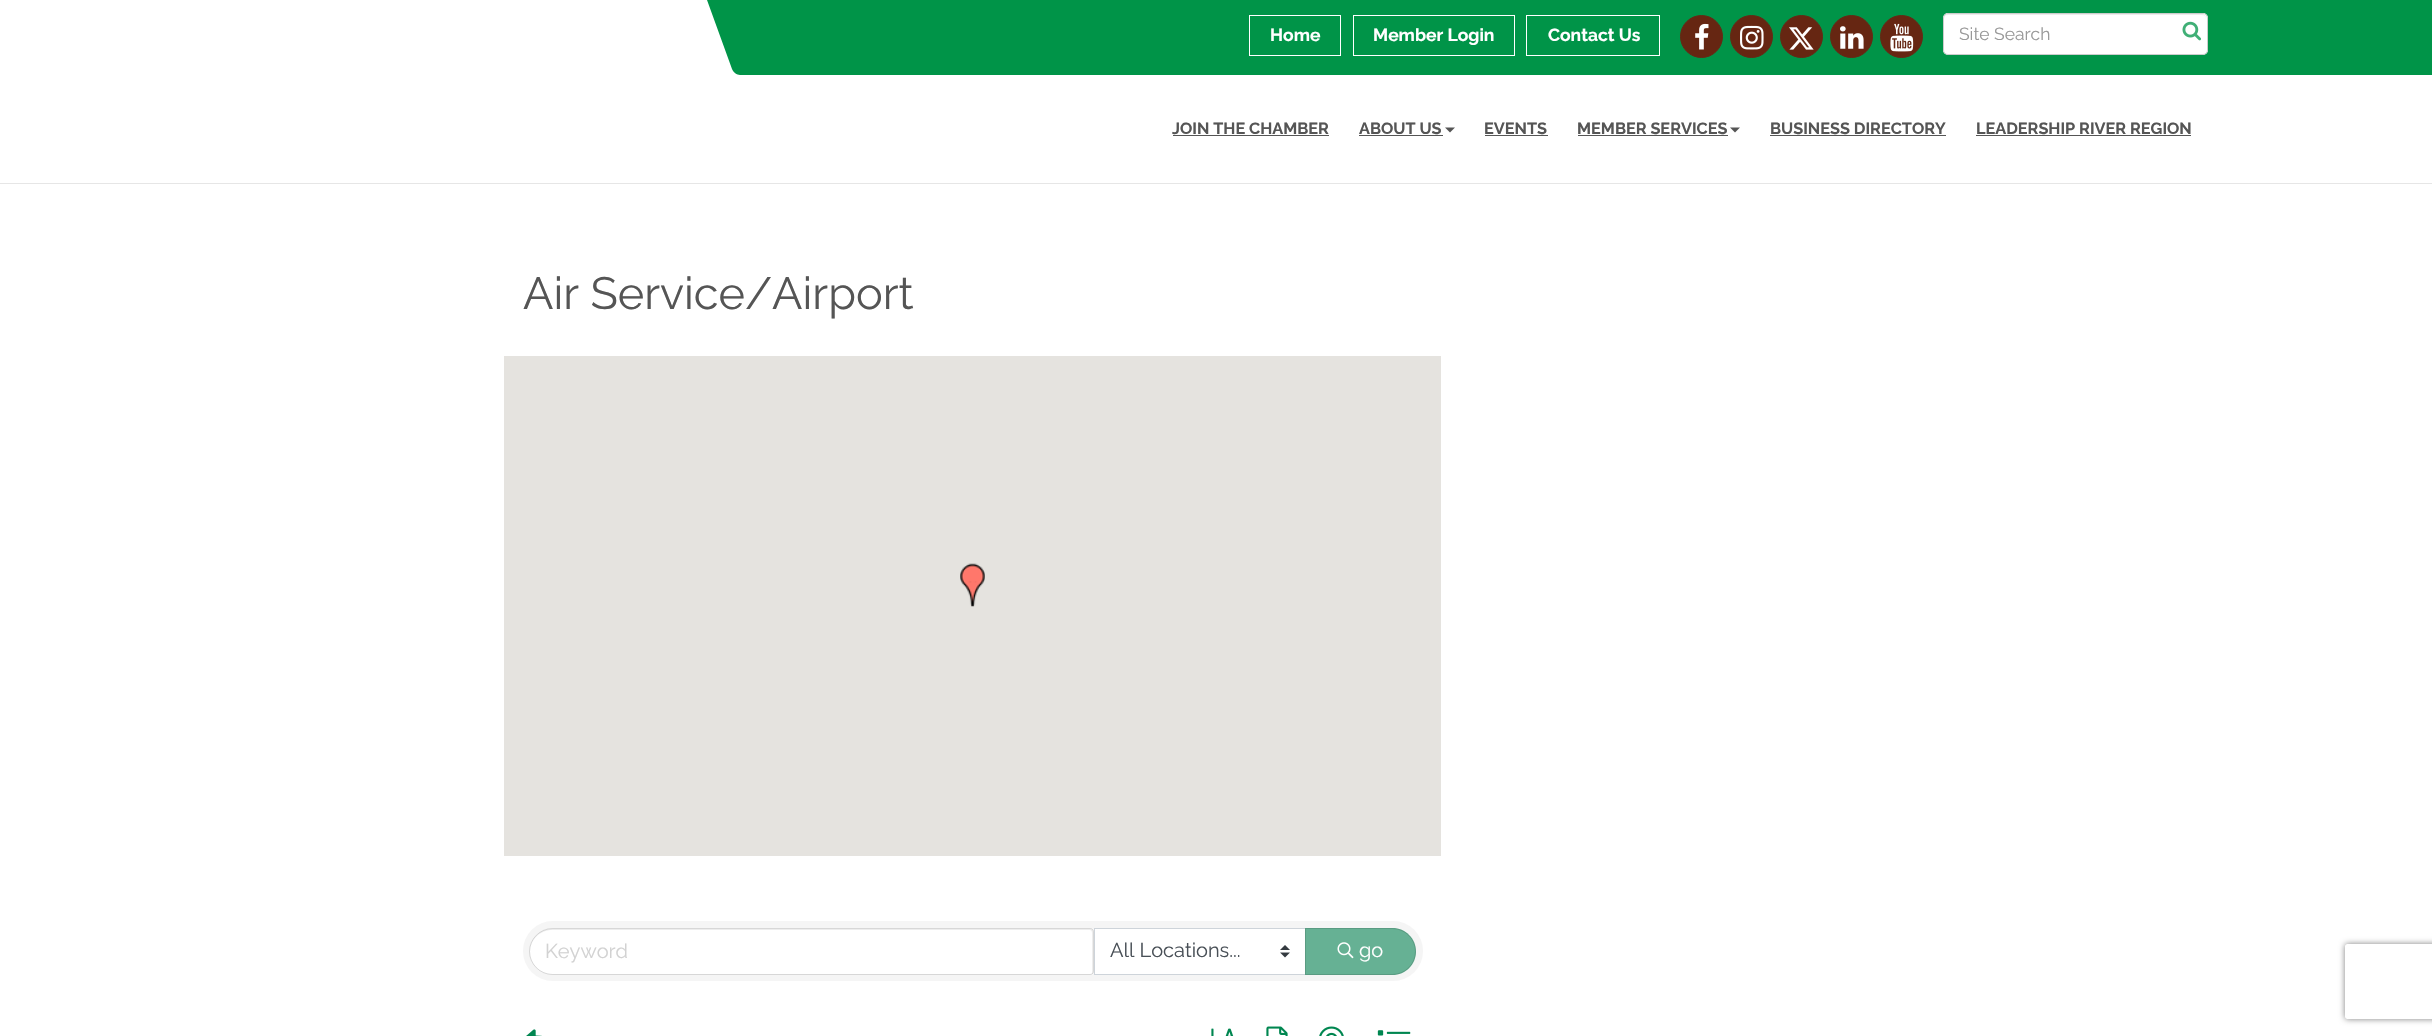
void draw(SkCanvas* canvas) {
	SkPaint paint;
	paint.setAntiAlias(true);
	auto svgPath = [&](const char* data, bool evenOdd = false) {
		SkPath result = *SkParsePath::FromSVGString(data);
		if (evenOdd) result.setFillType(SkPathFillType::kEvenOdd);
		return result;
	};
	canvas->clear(0xffffffff);
	paint.setColor(0xffe6e6e6);
	canvas->drawRect(SkRect::MakeXYWH(0, 183, 2432, 1), paint);
	paint.setColor(0xff009448);
	canvas->drawPath(svgPath("M707 0H2194L2222 75H740C737 75 733 72 732 69Z"), paint);
	paint.setStroke(true);
	paint.setStrokeWidth(1);
	paint.setColor(0xffffffff);
	canvas->drawRect(SkRect::MakeXYWH(1249.5, 15.5, 91, 40), paint);
	SkFont f1(fontMgr->matchFamilyStyle("Raleway", SkFontStyle::Bold()), 17.5);
	f1.setSubpixel(true);
	paint.setStroke(false);
	canvas->drawString("Home", 1270, 41, f1, paint);
	paint.setStroke(true);
	canvas->drawRect(SkRect::MakeXYWH(1353.5, 15.5, 161, 40), paint);
	paint.setStroke(false);
	canvas->drawString("Member Login", 1373, 41, f1, paint);
	paint.setStroke(true);
	canvas->drawRect(SkRect::MakeXYWH(1526.5, 15.5, 133, 40), paint);
	paint.setStroke(false);
	canvas->drawString("Contact Us", 1548, 41, f1, paint);
	paint.setColor(0xff662612);
	canvas->drawCircle(1701.5, 36.5, 21, paint);
	paint.setStroke(true);
	canvas->drawCircle(1701.5, 36.5, 21, paint);
	canvas->drawImageRect(SkImages::DeferredFromEncodedData(SkData::MakeFromFileName("img1.png")), SkRect::MakeXYWH(1695, 23, 14, 27), SkSamplingOptions());
	paint.setStroke(false);
	canvas->drawCircle(1751.5, 36.5, 21, paint);
	paint.setStroke(true);
	canvas->drawCircle(1751.5, 36.5, 21, paint);
	canvas->drawImageRect(SkImages::DeferredFromEncodedData(SkData::MakeFromFileName("img2.png")), SkRect::MakeXYWH(1740, 25, 24, 25), SkSamplingOptions());
	paint.setStroke(false);
	canvas->drawCircle(1801.5, 36.5, 21, paint);
	paint.setStroke(true);
	canvas->drawCircle(1801.5, 36.5, 21, paint);
	canvas->drawImageRect(SkImages::DeferredFromEncodedData(SkData::MakeFromFileName("img3.png")), SkRect::MakeXYWH(1789, 27, 25, 23), SkSamplingOptions());
	paint.setStroke(false);
	canvas->drawCircle(1851.5, 36.5, 21, paint);
	paint.setStroke(true);
	canvas->drawCircle(1851.5, 36.5, 21, paint);
	canvas->drawImageRect(SkImages::DeferredFromEncodedData(SkData::MakeFromFileName("img4.png")), SkRect::MakeXYWH(1840, 26, 24, 23), SkSamplingOptions());
	paint.setStroke(false);
	canvas->drawCircle(1901.5, 36.5, 21, paint);
	paint.setStroke(true);
	canvas->drawCircle(1901.5, 36.5, 21, paint);
	canvas->drawImageRect(SkImages::DeferredFromEncodedData(SkData::MakeFromFileName("img5.png")), SkRect::MakeXYWH(1890, 23, 24, 29), SkSamplingOptions());
	paint.setStroke(false);
	paint.setColor(0xff009448);
	canvas->drawPath(svgPath("M2193 0H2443L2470 75H2220Z"), paint);
	paint.setColor(0xffffffff);
	canvas->drawRoundRect(SkRect::MakeXYWH(1943, 13, 265, 42), 5, 5, paint);
	paint.setColor(0xffececec);
	canvas->drawPath(svgPath("M1948 15H2202C2205 15 2206 17 2206 19V18C2206 16 2204 14 2202 14H1948C1946 14 1944 16 1944 18V19C1944 17 1945 15 1948 15Z"), paint);
	paint.setStroke(true);
	paint.setColor(0xffcccccc);
	canvas->drawRoundRect(SkRect::MakeXYWH(1943.5, 13.5, 264, 41), 4.5, 4.5, paint);
	SkFont f2(fontMgr->matchFamilyStyle("Raleway", SkFontStyle::Normal()), 17.5);
	f2.setSubpixel(true);
	paint.setStroke(false);
	paint.setColor(0xff999999);
	canvas->drawString("Site Search", 1959, 40, f2, paint);
	canvas->drawImageRect(SkImages::DeferredFromEncodedData(SkData::MakeFromFileName("img6.png")), SkRect::MakeXYWH(2182, 21, 19, 20), SkSamplingOptions());
	SkFont f3(fontMgr->matchFamilyStyle("Raleway", SkFontStyle::Bold()), 16.25);
	f3.setSubpixel(true);
	paint.setColor(0xff555555);
	canvas->drawString("JOIN THE CHAMBER", 1172, 134, f3, paint);
	canvas->drawRect(SkRect::MakeXYWH(1173, 135, 156, 1), paint);
	canvas->drawString("ABOUT US", 1359, 134, f3, paint);
	canvas->drawRect(SkRect::MakeXYWH(1359, 135, 84, 1), paint);
	canvas->drawPath(svgPath("M1445 127.5H1455L1450 132.5Z"), paint);
	canvas->drawString("EVENTS", 1484, 134, f3, paint);
	canvas->drawRect(SkRect::MakeXYWH(1485, 135, 63, 1), paint);
	canvas->drawString("MEMBER SERVICES", 1577, 134, f3, paint);
	canvas->drawRect(SkRect::MakeXYWH(1578, 135, 150, 1), paint);
	canvas->drawPath(svgPath("M1730 127.5H1740L1735 132.5Z"), paint);
	canvas->drawString("BUSINESS DIRECTORY", 1770, 134, f3, paint);
	canvas->drawRect(SkRect::MakeXYWH(1770, 135, 176, 1), paint);
	canvas->drawString("LEADERSHIP RIVER REGION", 1976, 134, f3, paint);
	canvas->drawRect(SkRect::MakeXYWH(1976, 135, 215, 1), paint);
	SkFont f4(fontMgr->matchFamilyStyle("Raleway", SkFontStyle::Normal()), 45);
	f4.setSubpixel(true);
	canvas->drawString("Air Service/Airport", 523, 309, f4, paint);
	paint.setColor(0xffe5e3df);
	canvas->drawRect(SkRect::MakeXYWH(504, 356, 937, 500), paint);
	canvas->drawImageRect(SkImages::DeferredFromEncodedData(SkData::MakeFromFileName("img7.png")), SkRect::MakeXYWH(960, 563, 25, 44), SkSamplingOptions());
	paint.setColor(0xfff5f5f5);
	canvas->drawRoundRect(SkRect::MakeXYWH(523, 921, 900, 60), 30, 30, paint);
	paint.setColor(0xffffffff);
	canvas->drawPath(svgPath("M552.5 929H1090.5C1092 929 1093 930 1093 931.5V971.5C1093 973 1092 974 1090.5 974H552.5C540 974 530 964 530 951.5C530 939 540 929 552.5 929Z"), paint);
	paint.setColor(0x12000000);
	canvas->drawPath(svgPath("M552 930H1090C1091 930 1092 931 1092 933V974L1093 972V932C1093 930 1092 929 1090 929H552C540 929 530 939 530 952C530 940 540 930 552 930Z"), paint);
	paint.setStroke(true);
	paint.setColor(0x1f000000);
	canvas->drawPath(svgPath("M552.5 928.5H1090C1092 928.5 1093.5 930 1093.5 932V971C1093.5 973 1092 974.5 1090 974.5H552.5C540 974.5 529.5 964 529.5 951.5C529.5 939 540 928.5 552.5 928.5Z"), paint);
	SkFont f5(fontMgr->matchFamilyStyle("Raleway", SkFontStyle::Normal()), 20);
	f5.setSubpixel(true);
	paint.setStroke(false);
	paint.setColor(0xffd2d2d2);
	canvas->drawString("Keyword", 545, 958, f5, paint);
	paint.setColor(0xffffffff);
	canvas->drawRect(SkRect::MakeXYWH(1095, 929, 210, 45), paint);
	canvas->drawImageRect(SkImages::DeferredFromEncodedData(SkData::MakeFromFileName("img8.png")), SkRect::MakeXYWH(1280, 945, 10, 13), SkSamplingOptions());
	paint.setStroke(true);
	paint.setColor(0xffced4da);
	canvas->drawRect(SkRect::MakeXYWH(1094.5, 928.5, 211, 46), paint);
	paint.setStroke(false);
	paint.setColor(0xff495057);
	canvas->drawString("All Locations...", 1110, 957, f5, paint);
	paint.setColor(0xff66b194);
	canvas->drawPath(svgPath("M1305 928H1392.5C1405.5 928 1416 938.5 1416 951.5C1416 964.5 1405.5 975 1392.5 975H1305Z"), paint);
	paint.setStroke(true);
	paint.setColor(0x1f000000);
	canvas->drawPath(svgPath("M1305.5 928.5H1392.5C1405 928.5 1415.5 939 1415.5 951.5C1415.5 964 1405 974.5 1392.5 974.5H1305.5Z"), paint);
	canvas->drawImageRect(SkImages::DeferredFromEncodedData(SkData::MakeFromFileName("img9.png")), SkRect::MakeXYWH(1337, 942, 17, 17), SkSamplingOptions());
	paint.setStroke(false);
	paint.setColor(0xffffffff);
	canvas->drawString("go", 1359, 957, f5, paint);
	canvas->drawImageRect(SkImages::DeferredFromEncodedData(SkData::MakeFromFileName("img10.png")), SkRect::MakeXYWH(526, 1029, 16, 7), SkSamplingOptions());
	canvas->drawImageRect(SkImages::DeferredFromEncodedData(SkData::MakeFromFileName("img11.png")), SkRect::MakeXYWH(1211, 1028, 23, 8), SkSamplingOptions());
	canvas->drawImageRect(SkImages::DeferredFromEncodedData(SkData::MakeFromFileName("img12.png")), SkRect::MakeXYWH(1266, 1026, 22, 10), SkSamplingOptions());
	canvas->drawImageRect(SkImages::DeferredFromEncodedData(SkData::MakeFromFileName("img13.png")), SkRect::MakeXYWH(1319, 1026, 25, 10), SkSamplingOptions());
	canvas->drawImageRect(SkImages::DeferredFromEncodedData(SkData::MakeFromFileName("img14.png")), SkRect::MakeXYWH(1377, 1030, 34, 6), SkSamplingOptions());
	canvas->save();
	canvas->clipPath(svgPath("M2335 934H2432V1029H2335ZM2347.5 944H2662.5C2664 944 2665 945 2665 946.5V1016.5C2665 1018 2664 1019 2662.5 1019H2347.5C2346 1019 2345 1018 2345 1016.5V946.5C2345 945 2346 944 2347.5 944Z", true), true);
	paint.setColor(0xff808080);
	paint.setMaskFilter(SkMaskFilter::MakeBlur(kNormal_SkBlurStyle, 3));
	canvas->drawRoundRect(SkRect::MakeXYWH(2345, 944, 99, 75), 2.5, 2.5, paint);
	paint.setMaskFilter(nullptr);
	canvas->restore();
}
